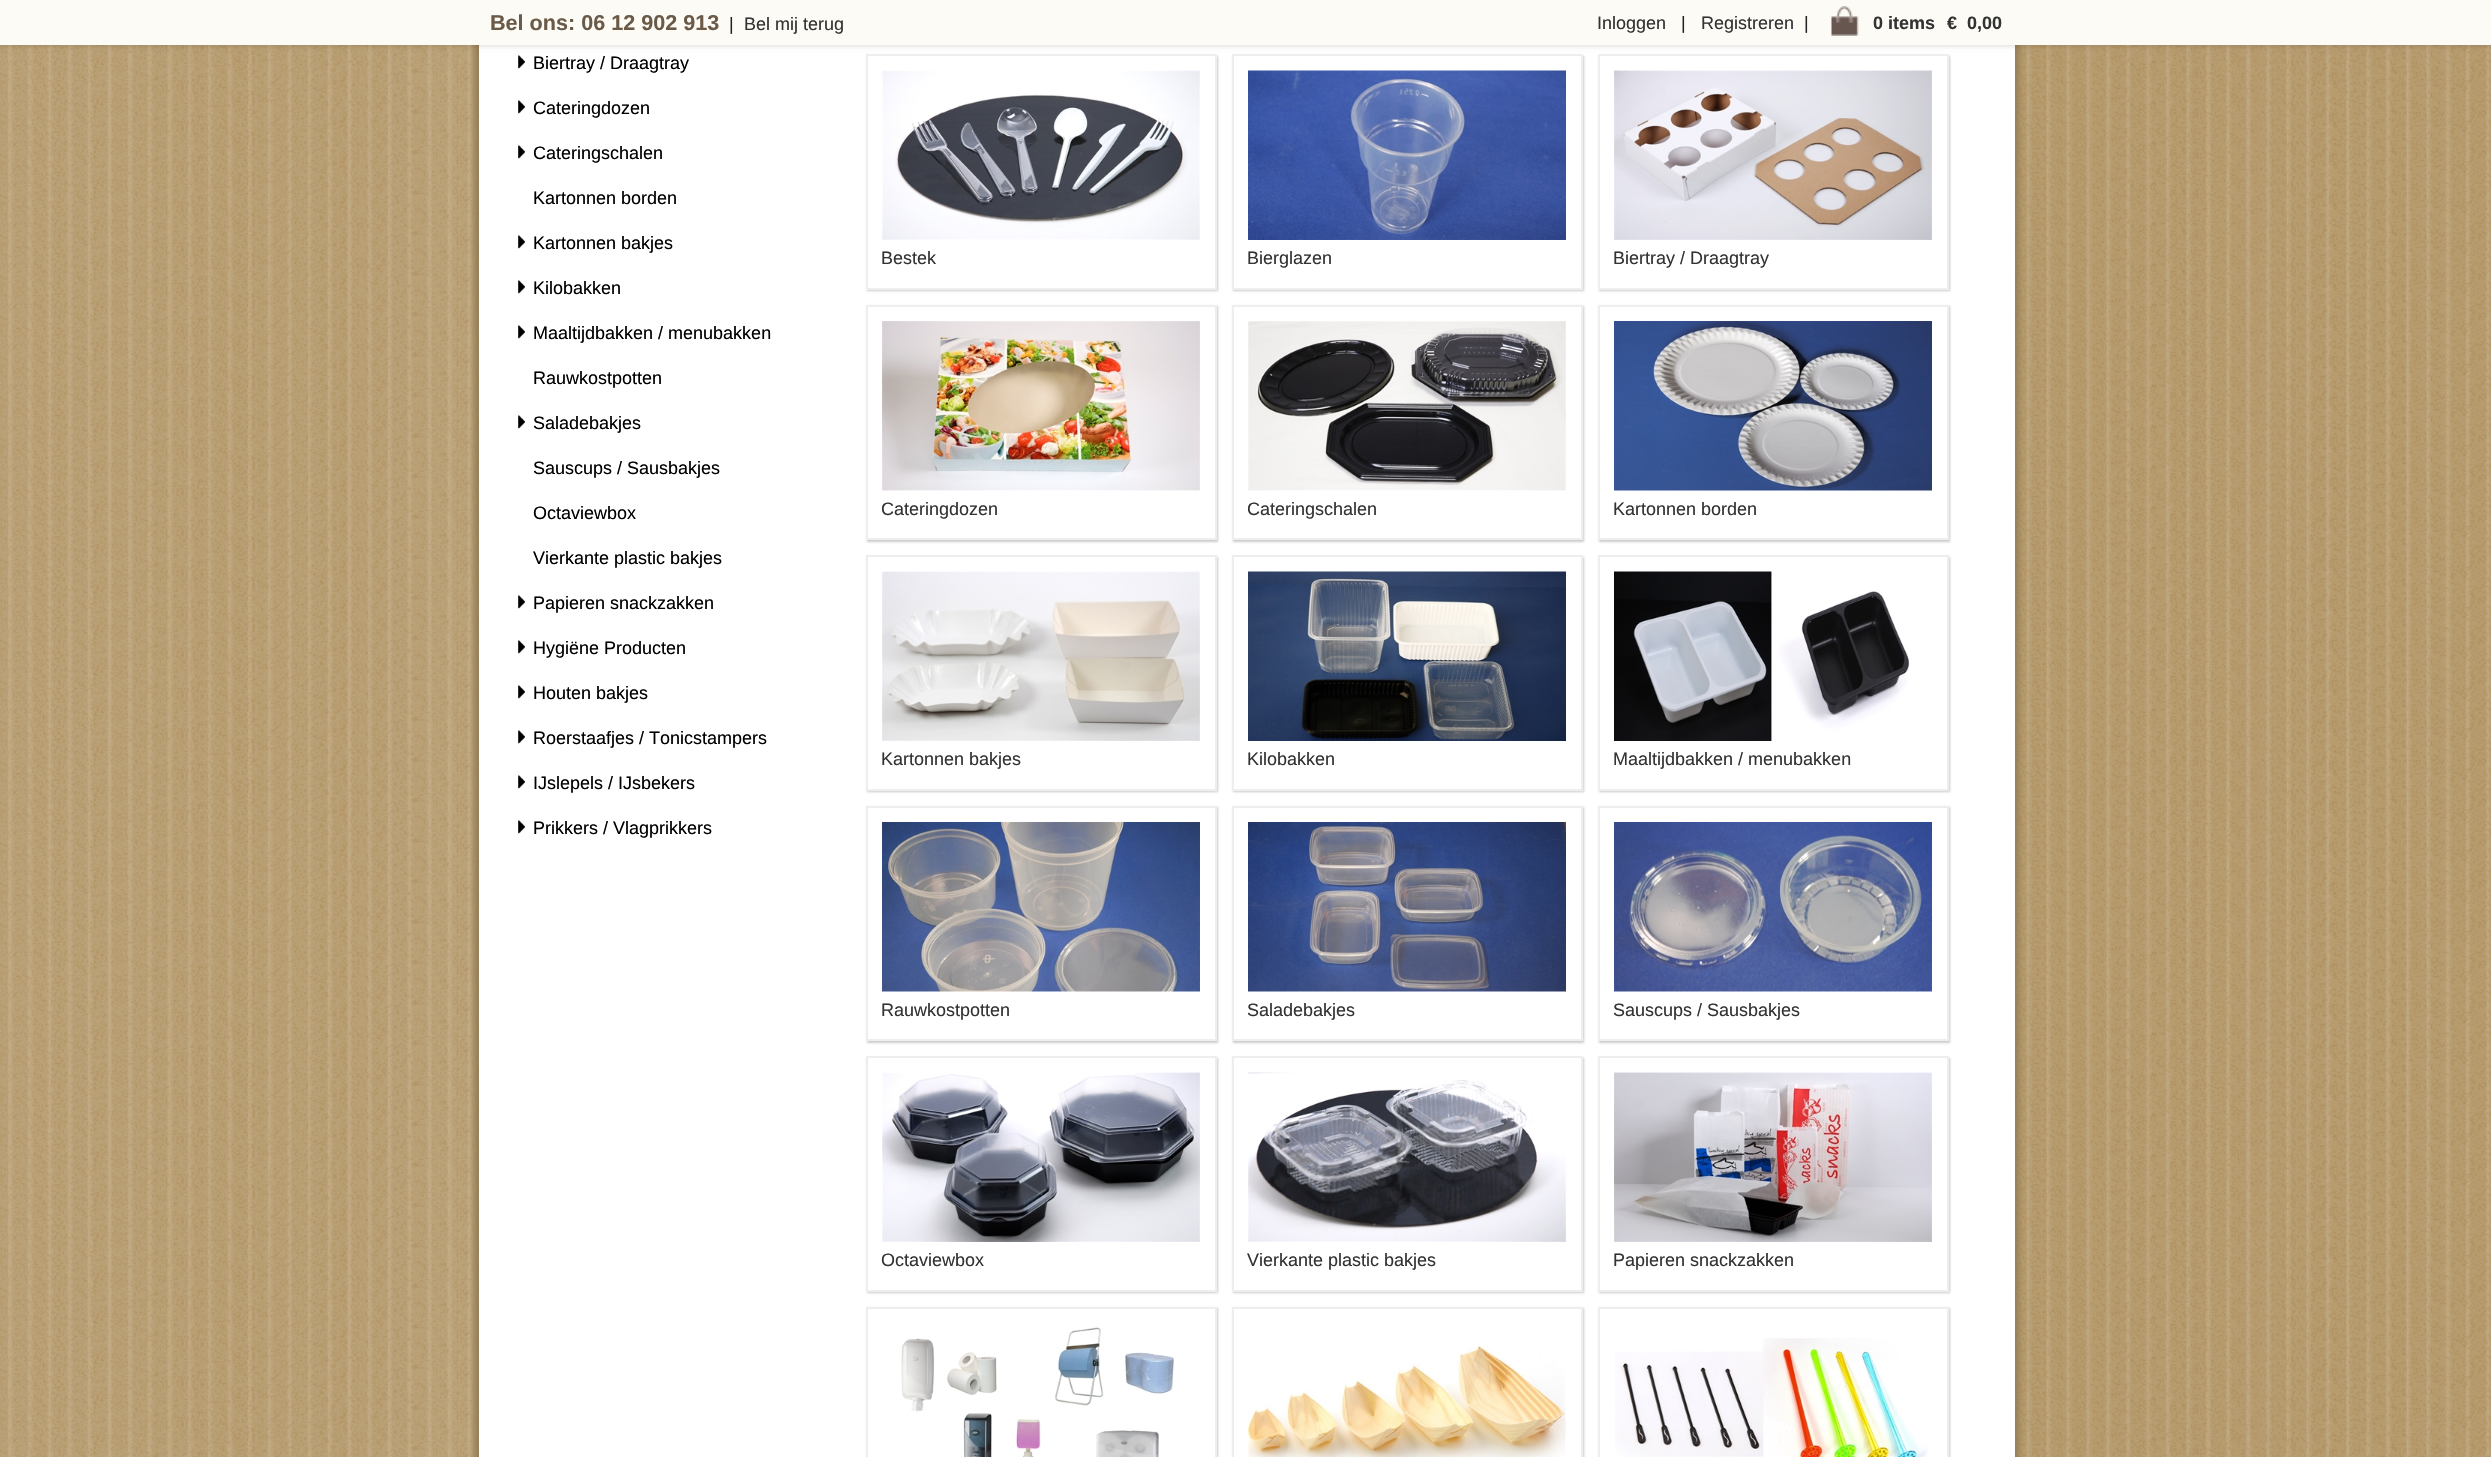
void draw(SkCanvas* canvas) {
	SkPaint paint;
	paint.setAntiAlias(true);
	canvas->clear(0xffffffff);
	canvas->drawImageRect(SkImages::DeferredFromEncodedData(SkData::MakeFromFileName("img1.png")), SkRect::MakeXYWH(0, 45, 2491, 1412), SkSamplingOptions());
	paint.setColor(0xff947e58);
	paint.setMaskFilter(SkMaskFilter::MakeBlur(kNormal_SkBlurStyle, 3));
	canvas->drawRect(SkRect::MakeXYWH(474, -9, 1536, 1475), paint);
	paint.setMaskFilter(nullptr);
	paint.setMaskFilter(SkMaskFilter::MakeBlur(kNormal_SkBlurStyle, 3));
	canvas->drawRect(SkRect::MakeXYWH(483, -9, 1536, 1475), paint);
	paint.setMaskFilter(nullptr);
	paint.setColor(0xffffffff);
	canvas->drawRect(SkRect::MakeXYWH(479, 45, 1536, 1412), paint);
	paint.setColor(0x1a000000);
	paint.setMaskFilter(SkMaskFilter::MakeBlur(kNormal_SkBlurStyle, 2));
	canvas->drawRect(SkRect::MakeXYWH(0, 2, 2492, 45), paint);
	paint.setMaskFilter(nullptr);
	paint.setColor(0xfffcfbf5);
	canvas->drawRect(SkRect::MakeXYWH(0, 0, 2491, 45), paint);
	SkFont f1(fontMgr->matchFamilyStyle("Liberation Sans", SkFontStyle::Bold()), 21.6);
	f1.setSubpixel(true);
	paint.setColor(0xff6a5a47);
	canvas->drawString("Bel ons: 06 12 902 913", 490, 30, f1, paint);
	SkFont f2(fontMgr->matchFamilyStyle("Liberation Sans", SkFontStyle::Normal()), 18);
	f2.setSubpixel(true);
	paint.setColor(0xff232323);
	canvas->drawString("|", 729, 30, f2, paint);
	paint.setColor(0xff333333);
	canvas->drawString("Bel mij terug", 744, 30, f2, paint);
	canvas->drawString("Inloggen", 1597, 29, f2, paint);
	paint.setColor(0xff232323);
	canvas->drawString("|", 1681, 29, f2, paint);
	paint.setColor(0xff333333);
	canvas->drawString("Registreren", 1701, 29, f2, paint);
	paint.setColor(0xff232323);
	canvas->drawString("|", 1804, 29, f2, paint);
	canvas->drawImageRect(SkImages::DeferredFromEncodedData(SkData::MakeFromFileName("img2.png")), SkRect::MakeXYWH(1831, 6, 28, 30), SkSamplingOptions());
	SkFont f3(fontMgr->matchFamilyStyle("Liberation Sans", SkFontStyle::Bold()), 18);
	f3.setSubpixel(true);
	paint.setColor(0xff333333);
	canvas->drawString("0 items", 1873, 29, f3, paint);
	canvas->drawString("€  0,00", 1947, 29, f3, paint);
	canvas->drawImageRect(SkImages::DeferredFromEncodedData(SkData::MakeFromFileName("img3.png")), SkRect::MakeXYWH(518, 55, 7, 14), SkSamplingOptions());
	paint.setColor(0xff000000);
	canvas->drawString("Biertray / Draagtray", 533, 69, f2, paint);
	canvas->drawImageRect(SkImages::DeferredFromEncodedData(SkData::MakeFromFileName("img3.png")), SkRect::MakeXYWH(518, 100, 7, 14), SkSamplingOptions());
	canvas->drawString("Cateringdozen", 533, 114, f2, paint);
	canvas->drawImageRect(SkImages::DeferredFromEncodedData(SkData::MakeFromFileName("img3.png")), SkRect::MakeXYWH(518, 145, 7, 14), SkSamplingOptions());
	canvas->drawString("Cateringschalen", 533, 159, f2, paint);
	canvas->drawString("Kartonnen borden", 533, 204, f2, paint);
	canvas->drawImageRect(SkImages::DeferredFromEncodedData(SkData::MakeFromFileName("img3.png")), SkRect::MakeXYWH(518, 235, 7, 14), SkSamplingOptions());
	canvas->drawString("Kartonnen bakjes", 533, 249, f2, paint);
	canvas->drawImageRect(SkImages::DeferredFromEncodedData(SkData::MakeFromFileName("img3.png")), SkRect::MakeXYWH(518, 280, 7, 14), SkSamplingOptions());
	canvas->drawString("Kilobakken", 533, 294, f2, paint);
	canvas->drawImageRect(SkImages::DeferredFromEncodedData(SkData::MakeFromFileName("img3.png")), SkRect::MakeXYWH(518, 325, 7, 14), SkSamplingOptions());
	canvas->drawString("Maaltijdbakken / menubakken", 533, 339, f2, paint);
	canvas->drawString("Rauwkostpotten", 533, 384, f2, paint);
	canvas->drawImageRect(SkImages::DeferredFromEncodedData(SkData::MakeFromFileName("img3.png")), SkRect::MakeXYWH(518, 415, 7, 14), SkSamplingOptions());
	canvas->drawString("Saladebakjes", 533, 429, f2, paint);
	canvas->drawString("Sauscups / Sausbakjes", 533, 474, f2, paint);
	canvas->drawString("Octaviewbox", 533, 519, f2, paint);
	canvas->drawString("Vierkante plastic bakjes", 533, 564, f2, paint);
	canvas->drawImageRect(SkImages::DeferredFromEncodedData(SkData::MakeFromFileName("img3.png")), SkRect::MakeXYWH(518, 595, 7, 14), SkSamplingOptions());
	canvas->drawString("Papieren snackzakken", 533, 609, f2, paint);
	canvas->drawImageRect(SkImages::DeferredFromEncodedData(SkData::MakeFromFileName("img3.png")), SkRect::MakeXYWH(518, 640, 7, 14), SkSamplingOptions());
	canvas->drawString("Hygiëne Producten", 533, 654, f2, paint);
	canvas->drawImageRect(SkImages::DeferredFromEncodedData(SkData::MakeFromFileName("img3.png")), SkRect::MakeXYWH(518, 685, 7, 14), SkSamplingOptions());
	canvas->drawString("Houten bakjes", 533, 699, f2, paint);
	canvas->drawImageRect(SkImages::DeferredFromEncodedData(SkData::MakeFromFileName("img3.png")), SkRect::MakeXYWH(518, 730, 7, 14), SkSamplingOptions());
	canvas->drawString("Roerstaafjes / Tonicstampers", 533, 744, f2, paint);
	canvas->drawImageRect(SkImages::DeferredFromEncodedData(SkData::MakeFromFileName("img3.png")), SkRect::MakeXYWH(518, 775, 7, 14), SkSamplingOptions());
	canvas->drawString("IJslepels / IJsbekers", 533, 789, f2, paint);
	canvas->drawImageRect(SkImages::DeferredFromEncodedData(SkData::MakeFromFileName("img3.png")), SkRect::MakeXYWH(518, 820, 7, 14), SkSamplingOptions());
	canvas->drawString("Prikkers / Vlagprikkers", 533, 834, f2, paint);
	paint.setColor(0x33000000);
	paint.setMaskFilter(SkMaskFilter::MakeBlur(kNormal_SkBlurStyle, 1));
	canvas->drawRect(SkRect::MakeXYWH(867, 56, 351, 235), paint);
	paint.setMaskFilter(nullptr);
	paint.setColor(0xffffffff);
	canvas->drawRect(SkRect::MakeXYWH(867, 55, 349, 234), paint);
	paint.setStroke(true);
	paint.setStrokeWidth(2);
	paint.setColor(0xffeeeeee);
	canvas->drawRect(SkRect::MakeXYWH(867, 55, 349, 234), paint);
	canvas->drawImageRect(SkImages::DeferredFromEncodedData(SkData::MakeFromFileName("img4.png")), SkRect::MakeXYWH(882, 70, 318, 170), SkSamplingOptions());
	paint.setStroke(false);
	paint.setColor(0xff333333);
	canvas->drawString("Bestek", 881, 264, f2, paint);
	paint.setColor(0x33000000);
	paint.setMaskFilter(SkMaskFilter::MakeBlur(kNormal_SkBlurStyle, 1));
	canvas->drawRect(SkRect::MakeXYWH(1233, 56, 351, 235), paint);
	paint.setMaskFilter(nullptr);
	paint.setColor(0xffffffff);
	canvas->drawRect(SkRect::MakeXYWH(1233, 55, 349, 234), paint);
	paint.setStroke(true);
	paint.setColor(0xffeeeeee);
	canvas->drawRect(SkRect::MakeXYWH(1233, 55, 349, 234), paint);
	canvas->drawImageRect(SkImages::DeferredFromEncodedData(SkData::MakeFromFileName("img5.png")), SkRect::MakeXYWH(1248, 70, 318, 170), SkSamplingOptions());
	paint.setStroke(false);
	paint.setColor(0xff333333);
	canvas->drawString("Bierglazen", 1247, 264, f2, paint);
	paint.setColor(0x33000000);
	paint.setMaskFilter(SkMaskFilter::MakeBlur(kNormal_SkBlurStyle, 1));
	canvas->drawRect(SkRect::MakeXYWH(1599, 56, 351, 235), paint);
	paint.setMaskFilter(nullptr);
	paint.setColor(0xffffffff);
	canvas->drawRect(SkRect::MakeXYWH(1599, 55, 349, 234), paint);
	paint.setStroke(true);
	paint.setColor(0xffeeeeee);
	canvas->drawRect(SkRect::MakeXYWH(1599, 55, 349, 234), paint);
	canvas->drawImageRect(SkImages::DeferredFromEncodedData(SkData::MakeFromFileName("img6.png")), SkRect::MakeXYWH(1614, 70, 318, 170), SkSamplingOptions());
	paint.setStroke(false);
	paint.setColor(0xff333333);
	canvas->drawString("Biertray / Draagtray", 1613, 264, f2, paint);
	paint.setColor(0x33000000);
	paint.setMaskFilter(SkMaskFilter::MakeBlur(kNormal_SkBlurStyle, 1));
	canvas->drawRect(SkRect::MakeXYWH(867, 306, 351, 236), paint);
	paint.setMaskFilter(nullptr);
	paint.setColor(0xffffffff);
	canvas->drawRect(SkRect::MakeXYWH(867, 306, 349, 233), paint);
	paint.setStroke(true);
	paint.setColor(0xffeeeeee);
	canvas->drawRect(SkRect::MakeXYWH(867, 306, 349, 233), paint);
	canvas->drawImageRect(SkImages::DeferredFromEncodedData(SkData::MakeFromFileName("img7.png")), SkRect::MakeXYWH(882, 321, 318, 170), SkSamplingOptions());
	paint.setStroke(false);
	paint.setColor(0xff333333);
	canvas->drawString("Cateringdozen", 881, 515, f2, paint);
	paint.setColor(0x33000000);
	paint.setMaskFilter(SkMaskFilter::MakeBlur(kNormal_SkBlurStyle, 1));
	canvas->drawRect(SkRect::MakeXYWH(1233, 306, 351, 236), paint);
	paint.setMaskFilter(nullptr);
	paint.setColor(0xffffffff);
	canvas->drawRect(SkRect::MakeXYWH(1233, 306, 349, 233), paint);
	paint.setStroke(true);
	paint.setColor(0xffeeeeee);
	canvas->drawRect(SkRect::MakeXYWH(1233, 306, 349, 233), paint);
	canvas->drawImageRect(SkImages::DeferredFromEncodedData(SkData::MakeFromFileName("img8.png")), SkRect::MakeXYWH(1248, 321, 318, 170), SkSamplingOptions());
	paint.setStroke(false);
	paint.setColor(0xff333333);
	canvas->drawString("Cateringschalen", 1247, 515, f2, paint);
	paint.setColor(0x33000000);
	paint.setMaskFilter(SkMaskFilter::MakeBlur(kNormal_SkBlurStyle, 1));
	canvas->drawRect(SkRect::MakeXYWH(1599, 306, 351, 236), paint);
	paint.setMaskFilter(nullptr);
	paint.setColor(0xffffffff);
	canvas->drawRect(SkRect::MakeXYWH(1599, 306, 349, 233), paint);
	paint.setStroke(true);
	paint.setColor(0xffeeeeee);
	canvas->drawRect(SkRect::MakeXYWH(1599, 306, 349, 233), paint);
	canvas->drawImageRect(SkImages::DeferredFromEncodedData(SkData::MakeFromFileName("img9.png")), SkRect::MakeXYWH(1614, 321, 318, 170), SkSamplingOptions());
	paint.setStroke(false);
	paint.setColor(0xff333333);
	canvas->drawString("Kartonnen borden", 1613, 515, f2, paint);
	paint.setColor(0x33000000);
	paint.setMaskFilter(SkMaskFilter::MakeBlur(kNormal_SkBlurStyle, 1));
	canvas->drawRect(SkRect::MakeXYWH(867, 557, 351, 235), paint);
	paint.setMaskFilter(nullptr);
	paint.setColor(0xffffffff);
	canvas->drawRect(SkRect::MakeXYWH(867, 556, 349, 234), paint);
	paint.setStroke(true);
	paint.setColor(0xffeeeeee);
	canvas->drawRect(SkRect::MakeXYWH(867, 556, 349, 234), paint);
	canvas->drawImageRect(SkImages::DeferredFromEncodedData(SkData::MakeFromFileName("img10.png")), SkRect::MakeXYWH(882, 571, 318, 170), SkSamplingOptions());
	paint.setStroke(false);
	paint.setColor(0xff333333);
	canvas->drawString("Kartonnen bakjes", 881, 765, f2, paint);
	paint.setColor(0x33000000);
	paint.setMaskFilter(SkMaskFilter::MakeBlur(kNormal_SkBlurStyle, 1));
	canvas->drawRect(SkRect::MakeXYWH(1233, 557, 351, 235), paint);
	paint.setMaskFilter(nullptr);
	paint.setColor(0xffffffff);
	canvas->drawRect(SkRect::MakeXYWH(1233, 556, 349, 234), paint);
	paint.setStroke(true);
	paint.setColor(0xffeeeeee);
	canvas->drawRect(SkRect::MakeXYWH(1233, 556, 349, 234), paint);
	canvas->drawImageRect(SkImages::DeferredFromEncodedData(SkData::MakeFromFileName("img11.png")), SkRect::MakeXYWH(1248, 571, 318, 170), SkSamplingOptions());
	paint.setStroke(false);
	paint.setColor(0xff333333);
	canvas->drawString("Kilobakken", 1247, 765, f2, paint);
	paint.setColor(0x33000000);
	paint.setMaskFilter(SkMaskFilter::MakeBlur(kNormal_SkBlurStyle, 1));
	canvas->drawRect(SkRect::MakeXYWH(1599, 557, 351, 235), paint);
	paint.setMaskFilter(nullptr);
	paint.setColor(0xffffffff);
	canvas->drawRect(SkRect::MakeXYWH(1599, 556, 349, 234), paint);
	paint.setStroke(true);
	paint.setColor(0xffeeeeee);
	canvas->drawRect(SkRect::MakeXYWH(1599, 556, 349, 234), paint);
	canvas->drawImageRect(SkImages::DeferredFromEncodedData(SkData::MakeFromFileName("img12.png")), SkRect::MakeXYWH(1614, 571, 296, 170), SkSamplingOptions());
	paint.setStroke(false);
	paint.setColor(0xff333333);
	canvas->drawString("Maaltijdbakken / menubakken", 1613, 765, f2, paint);
	paint.setColor(0x33000000);
	paint.setMaskFilter(SkMaskFilter::MakeBlur(kNormal_SkBlurStyle, 1));
	canvas->drawRect(SkRect::MakeXYWH(867, 807, 351, 236), paint);
	paint.setMaskFilter(nullptr);
	paint.setColor(0xffffffff);
	canvas->drawRect(SkRect::MakeXYWH(867, 807, 349, 233), paint);
	paint.setStroke(true);
	paint.setColor(0xffeeeeee);
	canvas->drawRect(SkRect::MakeXYWH(867, 807, 349, 233), paint);
	canvas->drawImageRect(SkImages::DeferredFromEncodedData(SkData::MakeFromFileName("img13.png")), SkRect::MakeXYWH(882, 822, 318, 170), SkSamplingOptions());
	paint.setStroke(false);
	paint.setColor(0xff333333);
	canvas->drawString("Rauwkostpotten", 881, 1016, f2, paint);
	paint.setColor(0x33000000);
	paint.setMaskFilter(SkMaskFilter::MakeBlur(kNormal_SkBlurStyle, 1));
	canvas->drawRect(SkRect::MakeXYWH(1233, 807, 351, 236), paint);
	paint.setMaskFilter(nullptr);
	paint.setColor(0xffffffff);
	canvas->drawRect(SkRect::MakeXYWH(1233, 807, 349, 233), paint);
	paint.setStroke(true);
	paint.setColor(0xffeeeeee);
	canvas->drawRect(SkRect::MakeXYWH(1233, 807, 349, 233), paint);
	canvas->drawImageRect(SkImages::DeferredFromEncodedData(SkData::MakeFromFileName("img14.png")), SkRect::MakeXYWH(1248, 822, 318, 170), SkSamplingOptions());
	paint.setStroke(false);
	paint.setColor(0xff333333);
	canvas->drawString("Saladebakjes", 1247, 1016, f2, paint);
	paint.setColor(0x33000000);
	paint.setMaskFilter(SkMaskFilter::MakeBlur(kNormal_SkBlurStyle, 1));
	canvas->drawRect(SkRect::MakeXYWH(1599, 807, 351, 236), paint);
	paint.setMaskFilter(nullptr);
	paint.setColor(0xffffffff);
	canvas->drawRect(SkRect::MakeXYWH(1599, 807, 349, 233), paint);
	paint.setStroke(true);
	paint.setColor(0xffeeeeee);
	canvas->drawRect(SkRect::MakeXYWH(1599, 807, 349, 233), paint);
	canvas->drawImageRect(SkImages::DeferredFromEncodedData(SkData::MakeFromFileName("img15.png")), SkRect::MakeXYWH(1614, 822, 318, 170), SkSamplingOptions());
	paint.setStroke(false);
	paint.setColor(0xff333333);
	canvas->drawString("Sauscups / Sausbakjes", 1613, 1016, f2, paint);
	paint.setColor(0x33000000);
	paint.setMaskFilter(SkMaskFilter::MakeBlur(kNormal_SkBlurStyle, 1));
	canvas->drawRect(SkRect::MakeXYWH(867, 1058, 351, 235), paint);
	paint.setMaskFilter(nullptr);
	paint.setColor(0xffffffff);
	canvas->drawRect(SkRect::MakeXYWH(867, 1057, 349, 234), paint);
	paint.setStroke(true);
	paint.setColor(0xffeeeeee);
	canvas->drawRect(SkRect::MakeXYWH(867, 1057, 349, 234), paint);
	canvas->drawImageRect(SkImages::DeferredFromEncodedData(SkData::MakeFromFileName("img16.png")), SkRect::MakeXYWH(882, 1072, 318, 170), SkSamplingOptions());
	paint.setStroke(false);
	paint.setColor(0xff333333);
	canvas->drawString("Octaviewbox", 881, 1266, f2, paint);
	paint.setColor(0x33000000);
	paint.setMaskFilter(SkMaskFilter::MakeBlur(kNormal_SkBlurStyle, 1));
	canvas->drawRect(SkRect::MakeXYWH(1233, 1058, 351, 235), paint);
	paint.setMaskFilter(nullptr);
	paint.setColor(0xffffffff);
	canvas->drawRect(SkRect::MakeXYWH(1233, 1057, 349, 234), paint);
	paint.setStroke(true);
	paint.setColor(0xffeeeeee);
	canvas->drawRect(SkRect::MakeXYWH(1233, 1057, 349, 234), paint);
	canvas->drawImageRect(SkImages::DeferredFromEncodedData(SkData::MakeFromFileName("img17.png")), SkRect::MakeXYWH(1248, 1072, 318, 170), SkSamplingOptions());
	paint.setStroke(false);
	paint.setColor(0xff333333);
	canvas->drawString("Vierkante plastic bakjes", 1247, 1266, f2, paint);
	paint.setColor(0x33000000);
	paint.setMaskFilter(SkMaskFilter::MakeBlur(kNormal_SkBlurStyle, 1));
	canvas->drawRect(SkRect::MakeXYWH(1599, 1058, 351, 235), paint);
	paint.setMaskFilter(nullptr);
	paint.setColor(0xffffffff);
	canvas->drawRect(SkRect::MakeXYWH(1599, 1057, 349, 234), paint);
	paint.setStroke(true);
	paint.setColor(0xffeeeeee);
	canvas->drawRect(SkRect::MakeXYWH(1599, 1057, 349, 234), paint);
	canvas->drawImageRect(SkImages::DeferredFromEncodedData(SkData::MakeFromFileName("img18.png")), SkRect::MakeXYWH(1614, 1072, 318, 170), SkSamplingOptions());
	paint.setStroke(false);
	paint.setColor(0xff333333);
	canvas->drawString("Papieren snackzakken", 1613, 1266, f2, paint);
	paint.setColor(0x33000000);
	paint.setMaskFilter(SkMaskFilter::MakeBlur(kNormal_SkBlurStyle, 1));
	canvas->drawRect(SkRect::MakeXYWH(867, 1308, 351, 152), paint);
	paint.setMaskFilter(nullptr);
	paint.setColor(0xffffffff);
	canvas->drawRect(SkRect::MakeXYWH(867, 1308, 349, 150), paint);
	paint.setStroke(true);
	paint.setColor(0xffeeeeee);
	canvas->drawRect(SkRect::MakeXYWH(867, 1308, 349, 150), paint);
	canvas->drawImageRect(SkImages::DeferredFromEncodedData(SkData::MakeFromFileName("img19.png")), SkRect::MakeXYWH(901, 1327, 273, 130), SkSamplingOptions());
	paint.setStroke(false);
	paint.setColor(0x33000000);
	paint.setMaskFilter(SkMaskFilter::MakeBlur(kNormal_SkBlurStyle, 1));
	canvas->drawRect(SkRect::MakeXYWH(1233, 1308, 351, 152), paint);
	paint.setMaskFilter(nullptr);
	paint.setColor(0xffffffff);
	canvas->drawRect(SkRect::MakeXYWH(1233, 1308, 349, 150), paint);
	paint.setStroke(true);
	paint.setColor(0xffeeeeee);
	canvas->drawRect(SkRect::MakeXYWH(1233, 1308, 349, 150), paint);
	canvas->drawImageRect(SkImages::DeferredFromEncodedData(SkData::MakeFromFileName("img20.png")), SkRect::MakeXYWH(1248, 1345, 318, 112), SkSamplingOptions());
	paint.setStroke(false);
	paint.setColor(0x33000000);
	paint.setMaskFilter(SkMaskFilter::MakeBlur(kNormal_SkBlurStyle, 1));
	canvas->drawRect(SkRect::MakeXYWH(1599, 1308, 351, 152), paint);
	paint.setMaskFilter(nullptr);
	paint.setColor(0xffffffff);
	canvas->drawRect(SkRect::MakeXYWH(1599, 1308, 349, 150), paint);
	paint.setStroke(true);
	paint.setColor(0xffeeeeee);
	canvas->drawRect(SkRect::MakeXYWH(1599, 1308, 349, 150), paint);
	canvas->drawImageRect(SkImages::DeferredFromEncodedData(SkData::MakeFromFileName("img21.png")), SkRect::MakeXYWH(1615, 1338, 313, 119), SkSamplingOptions());
}
